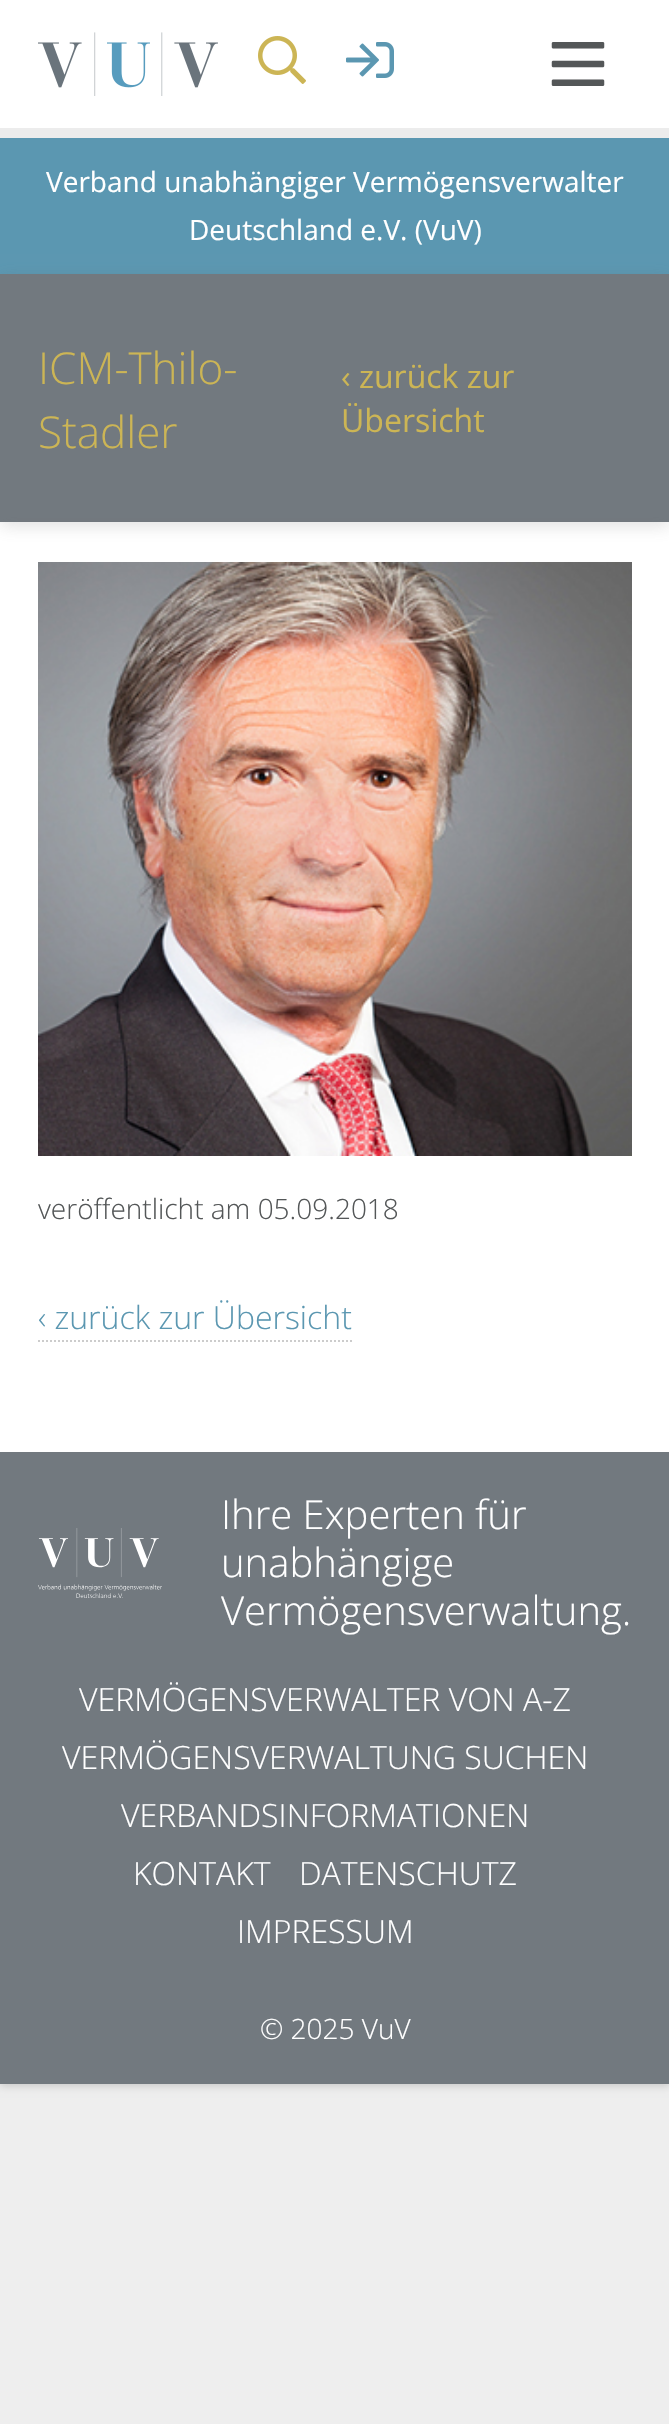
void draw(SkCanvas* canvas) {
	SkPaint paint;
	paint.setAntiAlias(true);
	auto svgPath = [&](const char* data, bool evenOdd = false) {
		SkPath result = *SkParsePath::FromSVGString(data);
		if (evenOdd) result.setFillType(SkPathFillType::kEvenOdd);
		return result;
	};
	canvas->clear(0xffeeeeee);
	paint.setColor(0x29000000);
	paint.setMaskFilter(SkMaskFilter::MakeBlur(kNormal_SkBlurStyle, 4));
	canvas->drawRect(SkRect::MakeXYWH(0, 2, 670, 2084), paint);
	paint.setMaskFilter(nullptr);
	paint.setColor(0xffffffff);
	canvas->drawRect(SkRect::MakeXYWH(0, 0, 669, 1452), paint);
	paint.setColor(0xffececec);
	canvas->drawRect(SkRect::MakeXYWH(0, 128, 669, 10), paint);
	canvas->drawImageRect(SkImages::DeferredFromEncodedData(SkData::MakeFromFileName("img1.png")), SkRect::MakeXYWH(38, 32, 180, 64), SkSamplingOptions());
	canvas->drawImageRect(SkImages::DeferredFromEncodedData(SkData::MakeFromFileName("img2.png")), SkRect::MakeXYWH(258, 36, 48, 48), SkSamplingOptions());
	canvas->drawImageRect(SkImages::DeferredFromEncodedData(SkData::MakeFromFileName("img3.png")), SkRect::MakeXYWH(346, 42, 48, 36), SkSamplingOptions());
	canvas->drawImageRect(SkImages::DeferredFromEncodedData(SkData::MakeFromFileName("img4.png")), SkRect::MakeXYWH(551, 42, 54, 44), SkSamplingOptions());
	paint.setColor(0xff5b97b1);
	canvas->drawRect(SkRect::MakeXYWH(0, 138, 669, 136), paint);
	SkFont f1(fontMgr->matchFamilyStyle("Open Sans", SkFontStyle::Normal()), 28);
	f1.setSubpixel(true);
	paint.setColor(0xffffffff);
	canvas->drawString("Verband unabhängiger Vermögensverwalter", 46, 192, f1, paint);
	canvas->drawString("Deutschland e.V. (VuV)", 189, 240, f1, paint);
	paint.setColor(0x33636363);
	paint.setMaskFilter(SkMaskFilter::MakeBlur(kNormal_SkBlurStyle, 8));
	canvas->drawRect(SkRect::MakeXYWH(0, 278, 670, 248), paint);
	paint.setMaskFilter(nullptr);
	paint.setColor(0xff72797f);
	canvas->drawRect(SkRect::MakeXYWH(0, 274, 669, 248), paint);
	SkFont f2(fontMgr->matchFamilyStyle("Open Sans", SkFontStyle(300, SkFontStyle::kNormal_Width, SkFontStyle::kUpright_Slant)), 44);
	f2.setSubpixel(true);
	paint.setColor(0xffccb555);
	canvas->drawString("ICM-Thilo-", 38, 384, f2, paint);
	canvas->drawString("Stadler", 38, 448, f2, paint);
	SkFont f3(fontMgr->matchFamilyStyle("Open Sans", SkFontStyle::Normal()), 32);
	f3.setSubpixel(true);
	canvas->drawString("‹ zurück zur", 341, 388, f3, paint);
	canvas->drawString("Übersicht", 341, 432, f3, paint);
	canvas->save();
	canvas->clipRect(SkRect::MakeXYWH(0, 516, 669, 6));
	paint.setColor(0x33636363);
	paint.setMaskFilter(SkMaskFilter::MakeBlur(kNormal_SkBlurStyle, 8));
	canvas->drawRect(SkRect::MakeXYWH(0, 526, 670, 930), paint);
	paint.setMaskFilter(nullptr);
	canvas->restore();
	canvas->drawImageRect(SkImages::DeferredFromEncodedData(SkData::MakeFromFileName("img5.png")), SkRect::MakeXYWH(38, 562, 594, 594), SkSamplingOptions());
	SkFont f4(fontMgr->matchFamilyStyle("Open Sans", SkFontStyle(300, SkFontStyle::kNormal_Width, SkFontStyle::kUpright_Slant)), 28);
	f4.setSubpixel(true);
	paint.setColor(0xff545758);
	canvas->drawString("veröffentlicht am 05.09.2018", 38, 1219, f4, paint);
	SkFont f5(fontMgr->matchFamilyStyle("Open Sans", SkFontStyle(300, SkFontStyle::kNormal_Width, SkFontStyle::kUpright_Slant)), 32);
	f5.setSubpixel(true);
	paint.setColor(0xff5b97b1);
	canvas->drawString("‹ zurück zur Übersicht", 38, 1329, f5, paint);
	paint.setStroke(true);
	paint.setStrokeWidth(2);
	paint.setColor(0xffcccccc);
	paint.setPathEffect(SkDashPathEffect::Make({{2, 2}}, 0));
	canvas->drawPath(svgPath("M38 1341H352"), paint);
	paint.setPathEffect(nullptr);
	paint.setStroke(false);
	paint.setColor(0xff72797f);
	canvas->drawRect(SkRect::MakeXYWH(0, 1452, 669, 632), paint);
	canvas->drawImageRect(SkImages::DeferredFromEncodedData(SkData::MakeFromFileName("img6.png")), SkRect::MakeXYWH(38, 1528, 124, 70), SkSamplingOptions());
	SkFont f6(fontMgr->matchFamilyStyle("Open Sans", SkFontStyle(300, SkFontStyle::kNormal_Width, SkFontStyle::kUpright_Slant)), 40);
	f6.setSubpixel(true);
	paint.setColor(0xffffffff);
	canvas->drawString("Ihre Experten für", 221, 1529, f6, paint);
	canvas->drawString("unabhängige", 221, 1577, f6, paint);
	canvas->drawString("Vermögensverwaltung.", 221, 1625, f6, paint);
	canvas->drawString("VERMÖGENSVERWALTER VON A-Z", 79, 1711, f5, paint);
	canvas->drawString("VERMÖGENSVERWALTUNG SUCHEN", 62, 1769, f5, paint);
	canvas->drawString("VERBANDSINFORMATIONEN", 121, 1827, f5, paint);
	canvas->drawString("KONTAKT", 133, 1885, f5, paint);
	canvas->drawString("DATENSCHUTZ", 299, 1885, f5, paint);
	canvas->drawString("IMPRESSUM", 237, 1943, f5, paint);
	canvas->drawString("© 2025 VuV", 260, 2039, f4, paint);
}
